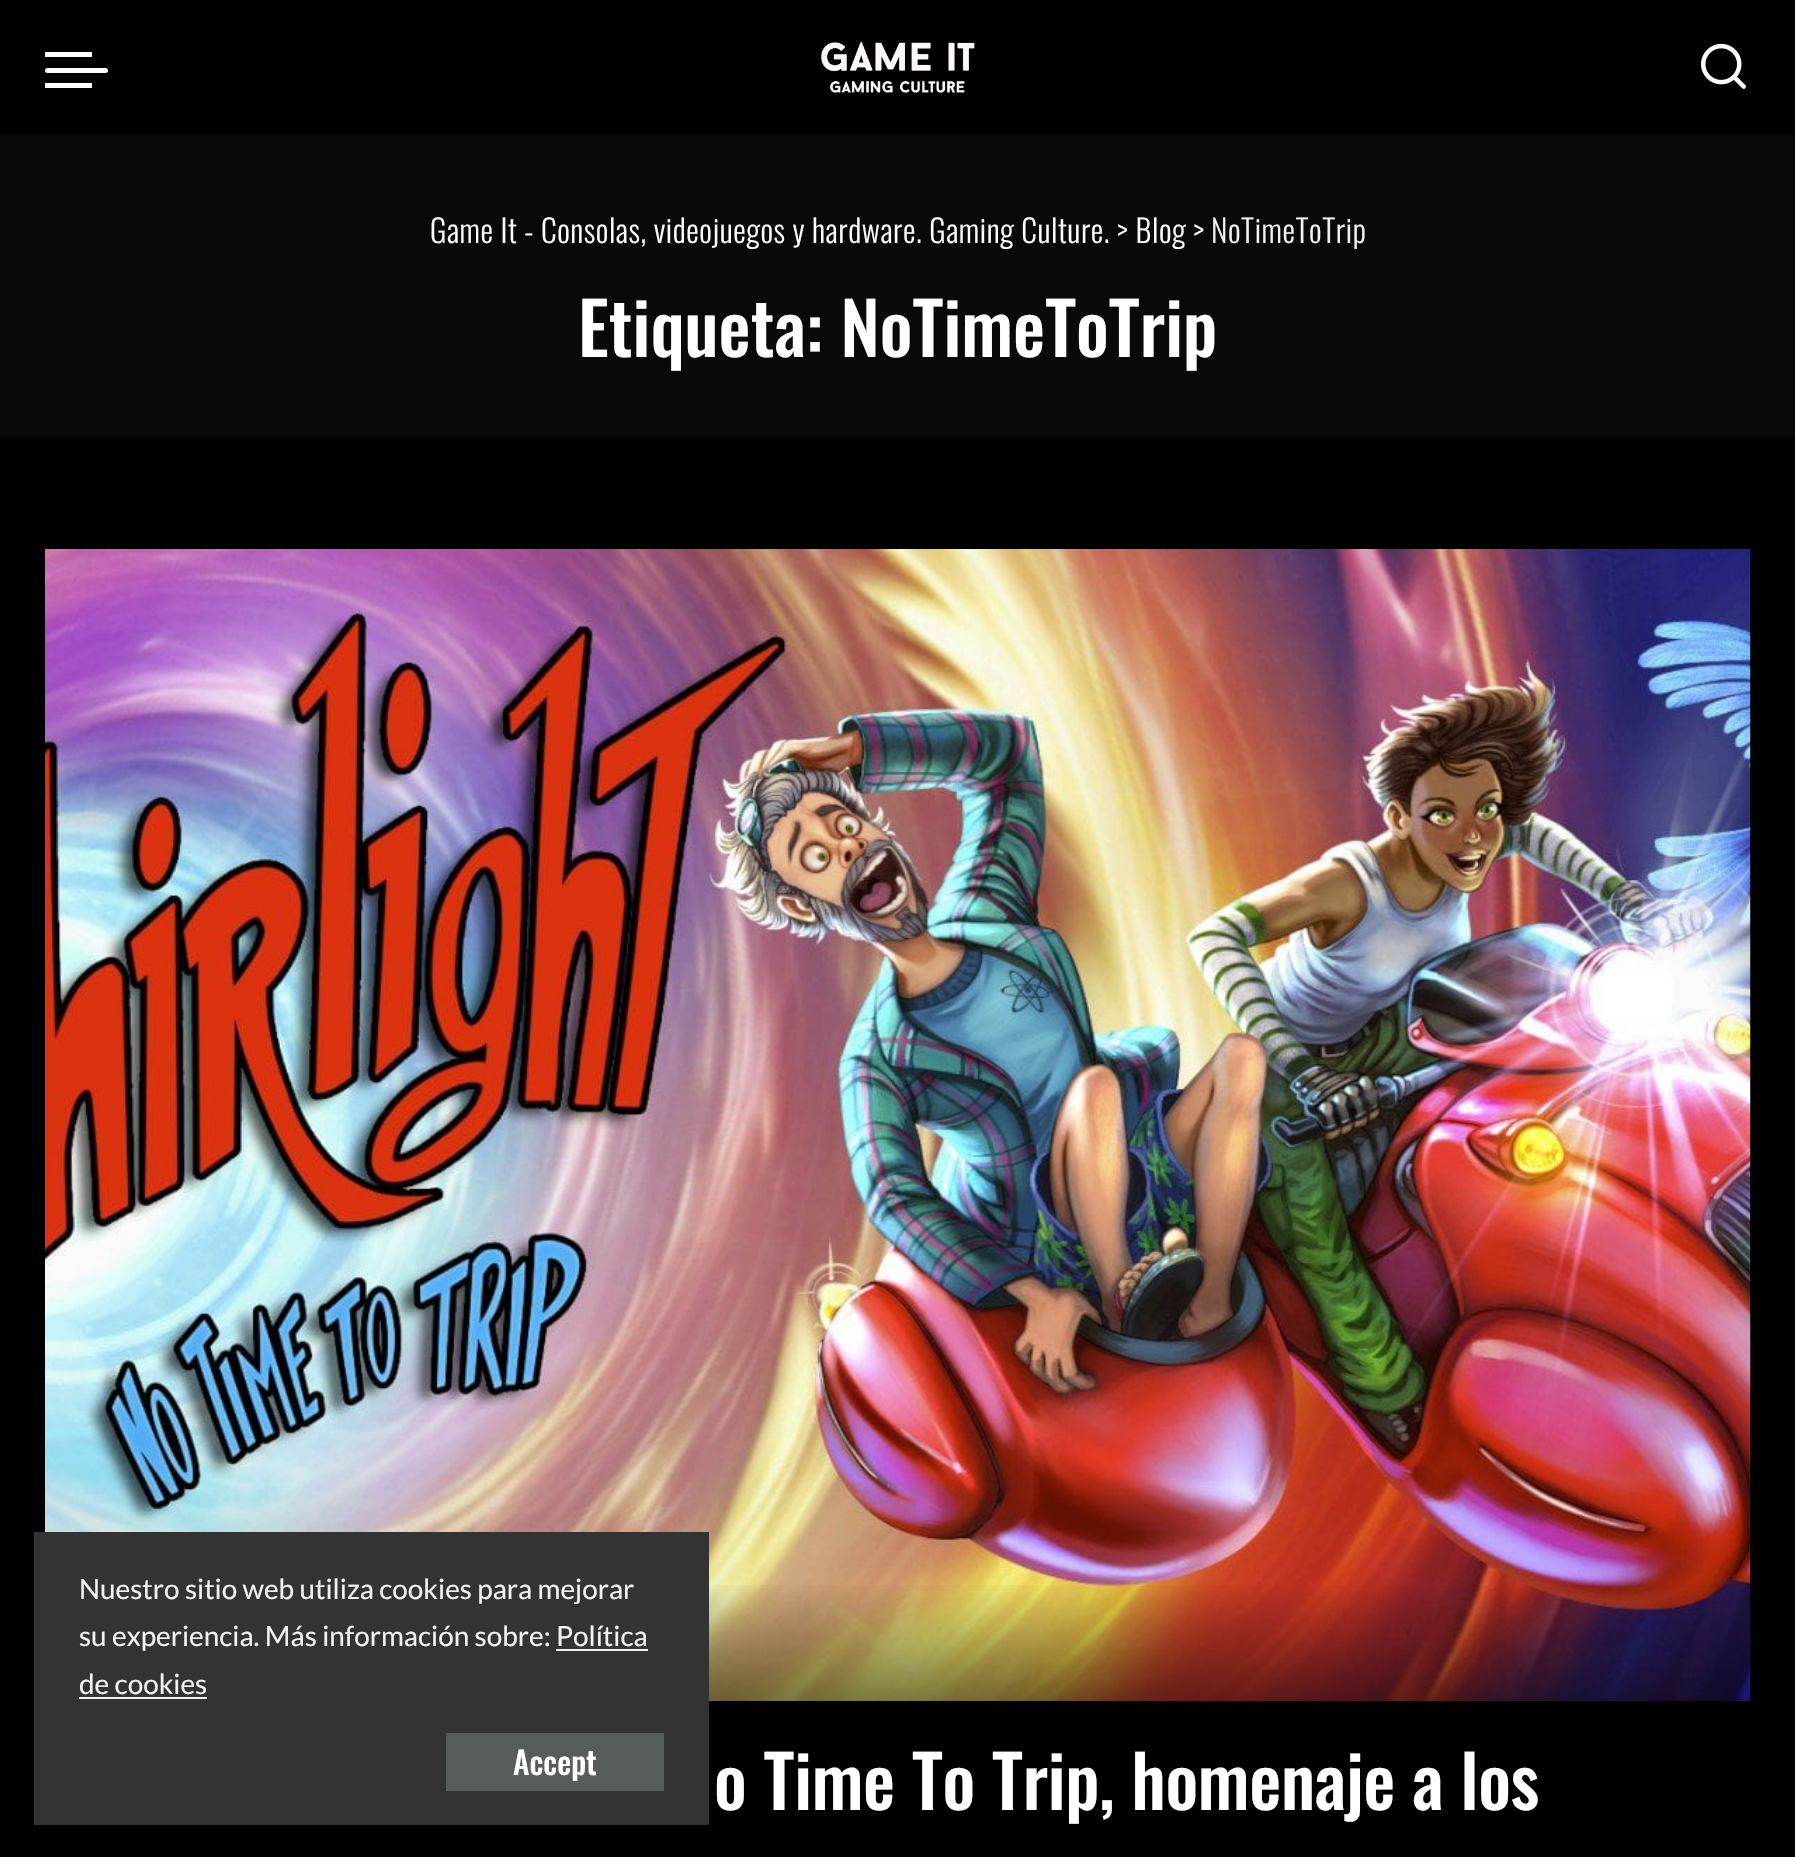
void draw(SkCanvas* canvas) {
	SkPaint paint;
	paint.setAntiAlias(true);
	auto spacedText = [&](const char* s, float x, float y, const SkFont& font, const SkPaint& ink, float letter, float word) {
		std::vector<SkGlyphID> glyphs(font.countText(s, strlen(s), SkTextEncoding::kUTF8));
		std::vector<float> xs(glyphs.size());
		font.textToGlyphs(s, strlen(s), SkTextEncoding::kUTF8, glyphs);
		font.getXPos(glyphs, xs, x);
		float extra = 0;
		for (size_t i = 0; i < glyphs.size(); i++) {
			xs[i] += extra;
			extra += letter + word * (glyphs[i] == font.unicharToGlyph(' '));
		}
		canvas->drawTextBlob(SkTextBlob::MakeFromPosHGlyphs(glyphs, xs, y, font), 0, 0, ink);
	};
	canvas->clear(0xff000000);
	canvas->drawImageRect(SkImages::DeferredFromEncodedData(SkData::MakeFromFileName("img3.png")), SkRect::MakeXYWH(45, 549, 1706, 1152), SkSamplingOptions());
	{
		const SkColor colors[] = {0x00000000, 0x80000000};
		const float stops[] = {0, 1};
		const SkPoint ends[] = {{898, 1580}, {898, 1701}};
		paint.setShader(SkGradientShader::MakeLinear(ends, colors, stops, 2, SkTileMode::kClamp));
		paint.setAlpha(255);
	}
	canvas->drawRect(SkRect::MakeXYWH(709, 1585, 1042, 116), paint);
	paint.setShader(nullptr);
	paint.setColor(0x12000000);
	paint.setMaskFilter(SkMaskFilter::MakeBlur(kNormal_SkBlurStyle, 34));
	canvas->drawRect(SkRect::MakeXYWH(34, 1541, 675, 293), paint);
	paint.setMaskFilter(nullptr);
	paint.setColor(0xff333333);
	canvas->drawRect(SkRect::MakeXYWH(34, 1532, 675, 293), paint);
	SkFont f1(fontMgr->matchFamilyStyle("Lato", SkFontStyle::Normal()), 27.9);
	f1.setSubpixel(true);
	paint.setColor(0xfff2f2f2);
	canvas->drawString("Nuestro sitio web utiliza cookies para mejorar", 79, 1599, f1, paint);
	canvas->drawString("su experiencia. Más información sobre:", 79, 1646, f1, paint);
	canvas->drawString("Política", 556, 1646, f1, paint);
	canvas->drawRect(SkRect::MakeXYWH(556, 1649, 92, 2), paint);
	canvas->drawString("de cookies", 79, 1694, f1, paint);
	canvas->drawRect(SkRect::MakeXYWH(79, 1697, 128, 2), paint);
	paint.setColor(0xff565c5c);
	canvas->drawRect(SkRect::MakeXYWH(446, 1733, 218, 58), paint);
	SkFont f2(fontMgr->matchFamilyStyle("Oswald", SkFontStyle(500, SkFontStyle::kNormal_Width, SkFontStyle::kUpright_Slant)), 31.5);
	f2.setSubpixel(true);
	paint.setColor(0xffffffff);
	canvas->drawString("Accept", 513, 1775, f2, paint);
	canvas->drawRoundRect(SkRect::MakeXYWH(45, 68, 63, 5), 2.5, 2.5, paint);
	canvas->drawRect(SkRect::MakeXYWH(45, 52, 47, 5), paint);
	canvas->drawRect(SkRect::MakeXYWH(45, 83, 47, 5), paint);
	canvas->drawImageRect(SkImages::DeferredFromEncodedData(SkData::MakeFromFileName("img1.png")), SkRect::MakeXYWH(821, 42, 154, 51), SkSamplingOptions());
	canvas->drawImageRect(SkImages::DeferredFromEncodedData(SkData::MakeFromFileName("img2.png")), SkRect::MakeXYWH(1701, 43, 45, 46), SkSamplingOptions());
	paint.setColor(0xff090909);
	canvas->drawRect(SkRect::MakeXYWH(0, 135, 1795, 302), paint);
	SkFont f3(fontMgr->matchFamilyStyle("Oswald", SkFontStyle(300, SkFontStyle::kNormal_Width, SkFontStyle::kUpright_Slant)), 31.5);
	f3.setSubpixel(true);
	paint.setColor(0xffffffff);
	spacedText("Game It - Consolas, videojuegos y hardware. Gaming Culture. > Blog >", 430, 243, f3, paint, 0.55, 0);
	paint.setColor(0xfff2f2f2);
	spacedText("NoTimeToTrip", 1211, 243, f3, paint, 0.55, 0);
	SkFont f4(fontMgr->matchFamilyStyle("Oswald", SkFontStyle(500, SkFontStyle::kNormal_Width, SkFontStyle::kUpright_Slant)), 72);
	f4.setSubpixel(true);
	paint.setColor(0xffffffff);
	canvas->drawString("Etiqueta: NoTimeToTrip", 578, 357, f4, paint);
	spacedText("o Time To Trip, homenaje a los", 714, 1810, f4, paint, -0.35, 0);
}
